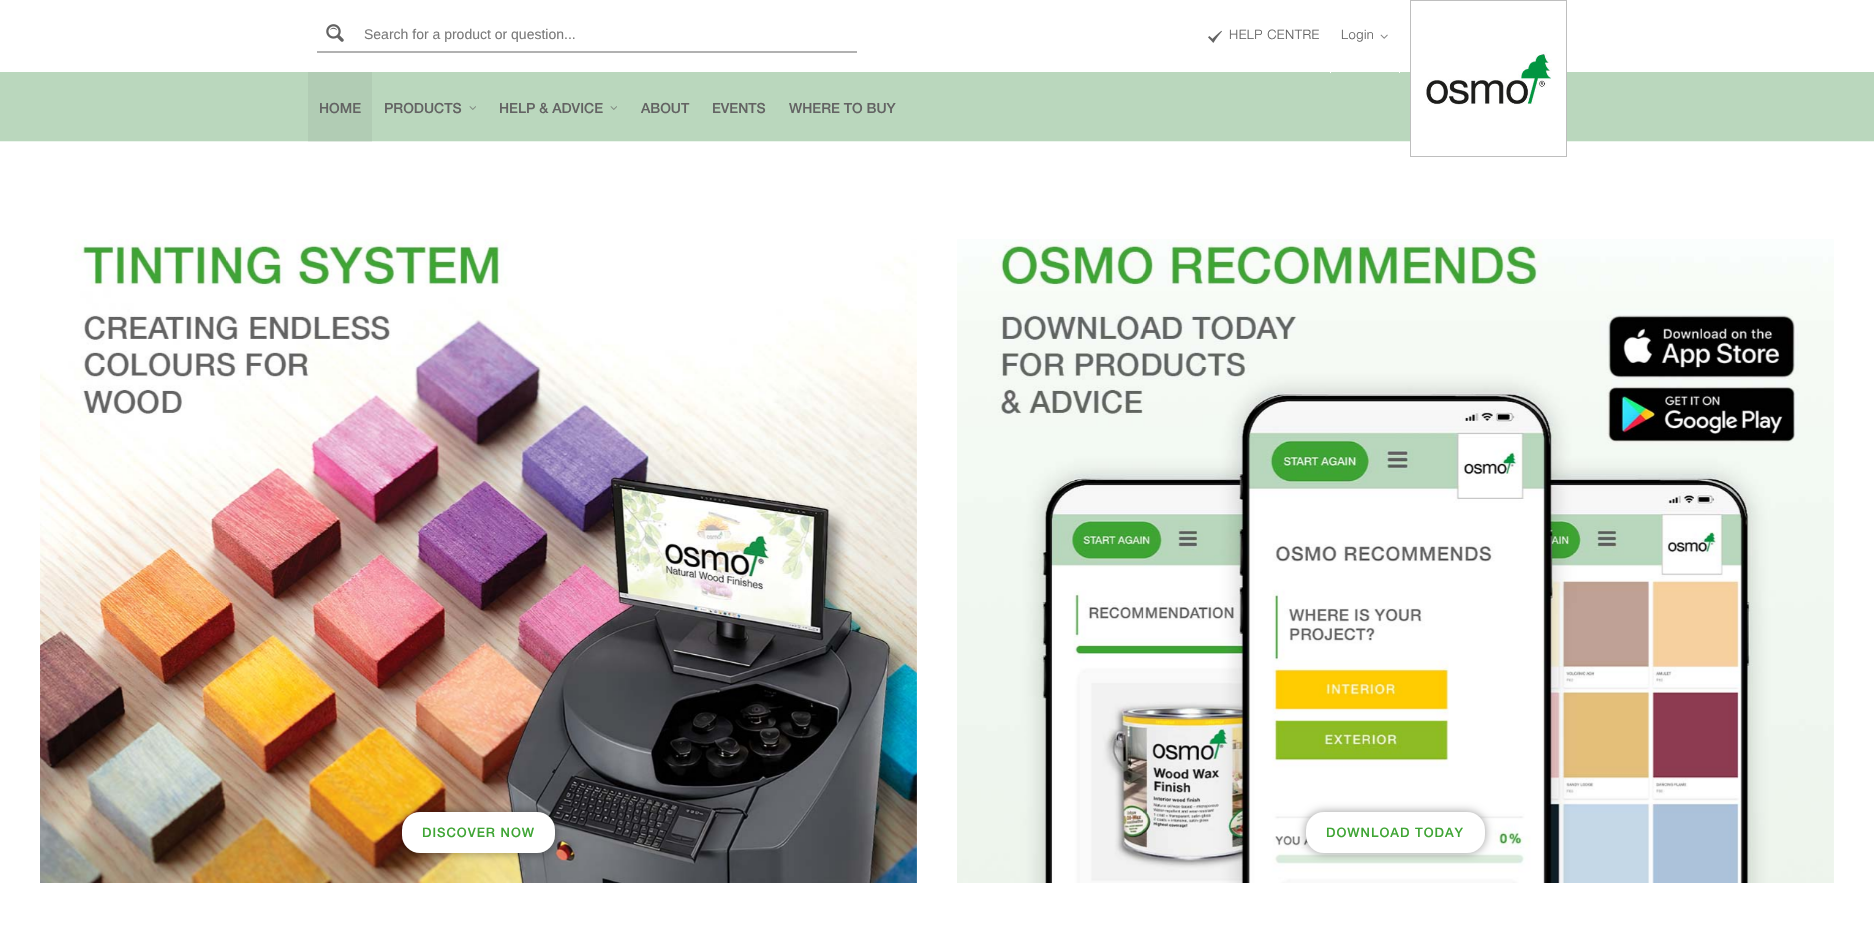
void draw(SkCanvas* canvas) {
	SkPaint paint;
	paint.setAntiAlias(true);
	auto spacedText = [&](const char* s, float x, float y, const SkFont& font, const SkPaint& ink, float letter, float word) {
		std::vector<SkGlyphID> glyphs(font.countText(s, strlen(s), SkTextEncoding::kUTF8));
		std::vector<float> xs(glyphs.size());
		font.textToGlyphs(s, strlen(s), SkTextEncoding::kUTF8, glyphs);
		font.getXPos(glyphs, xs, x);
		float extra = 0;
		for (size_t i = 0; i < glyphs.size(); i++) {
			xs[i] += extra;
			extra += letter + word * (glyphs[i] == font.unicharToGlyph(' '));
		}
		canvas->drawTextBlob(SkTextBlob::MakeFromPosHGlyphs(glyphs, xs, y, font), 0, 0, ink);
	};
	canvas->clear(0xffffffff);
	paint.setColor(0xffb1b1b1);
	canvas->drawRect(SkRect::MakeXYWH(317, 51, 540, 2), paint);
	canvas->drawImageRect(SkImages::DeferredFromEncodedData(SkData::MakeFromFileName("img1.png")), SkRect::MakeXYWH(326, 24, 18, 18), SkSamplingOptions());
	SkFont f1(fontMgr->matchFamilyStyle("Liberation Sans", SkFontStyle::Normal()), 14);
	f1.setSubpixel(true);
	paint.setColor(0xff7a7a7a);
	canvas->drawString("Search for a product or question...", 364, 39, f1, paint);
	paint.setColor(0xffbad7bd);
	canvas->drawRect(SkRect::MakeXYWH(0, 72, 1874, 69), paint);
	paint.setColor(0xffffffff);
	canvas->drawRect(SkRect::MakeXYWH(1330, 72, 1, 1), paint);
	canvas->drawImageRect(SkImages::DeferredFromEncodedData(SkData::MakeFromFileName("img2.png")), SkRect::MakeXYWH(1208, 30, 14, 13), SkSamplingOptions());
	SkFont f2(fontMgr->matchFamilyStyle("Helvetica Neue", SkFontStyle(300, SkFontStyle::kNormal_Width, SkFontStyle::kUpright_Slant)), 13);
	f2.setSubpixel(true);
	paint.setColor(0xff636363);
	spacedText("HELP CENTRE", 1229, 39, f2, paint, 0.5, 0);
	paint.setColor(0xffffffff);
	canvas->drawRect(SkRect::MakeXYWH(1399, 72, 1, 1), paint);
	paint.setColor(0xff636363);
	spacedText("Login", 1341, 39, f2, paint, 0.5, 0);
	canvas->drawImageRect(SkImages::DeferredFromEncodedData(SkData::MakeFromFileName("img3.png")), SkRect::MakeXYWH(1380, 34, 8, 5), SkSamplingOptions());
	paint.setColor(0xffebf5ec);
	canvas->drawRect(SkRect::MakeXYWH(0, 141, 1874, 1), paint);
	paint.setStroke(true);
	paint.setStrokeWidth(1);
	paint.setColor(0xffbebebe);
	canvas->drawRect(SkRect::MakeXYWH(1410.5, 0.5, 156, 156), paint);
	canvas->drawImageRect(SkImages::DeferredFromEncodedData(SkData::MakeFromFileName("img4.png")), SkRect::MakeXYWH(1411, 51, 155, 95), SkSamplingOptions());
	paint.setStroke(false);
	paint.setColor(0xffb1ccb4);
	canvas->drawRect(SkRect::MakeXYWH(308, 72, 64, 69), paint);
	paint.setColor(0xffdfe9e0);
	canvas->drawRect(SkRect::MakeXYWH(308, 141, 64, 1), paint);
	SkFont f3(fontMgr->matchFamilyStyle("Helvetica Neue", SkFontStyle(500, SkFontStyle::kNormal_Width, SkFontStyle::kUpright_Slant)), 14);
	f3.setSubpixel(true);
	paint.setColor(0xff636363);
	canvas->drawString("HOME", 319, 113, f3, paint);
	canvas->drawString("PRODUCTS", 384, 113, f3, paint);
	canvas->drawImageRect(SkImages::DeferredFromEncodedData(SkData::MakeFromFileName("img5.png")), SkRect::MakeXYWH(469, 106, 7, 4), SkSamplingOptions());
	canvas->drawString("HELP & ADVICE", 499, 113, f3, paint);
	canvas->drawImageRect(SkImages::DeferredFromEncodedData(SkData::MakeFromFileName("img5.png")), SkRect::MakeXYWH(610, 106, 7, 4), SkSamplingOptions());
	canvas->drawString("ABOUT", 641, 113, f3, paint);
	canvas->drawString("EVENTS", 712, 113, f3, paint);
	canvas->drawString("WHERE TO BUY", 789, 113, f3, paint);
	canvas->drawImageRect(SkImages::DeferredFromEncodedData(SkData::MakeFromFileName("img6.png")), SkRect::MakeXYWH(40, 239, 877, 644), SkSamplingOptions());
	paint.setColor(0x66000000);
	paint.setMaskFilter(SkMaskFilter::MakeBlur(kNormal_SkBlurStyle, 5));
	canvas->drawRoundRect(SkRect::MakeXYWH(402, 812, 153, 41), 18, 18, paint);
	paint.setMaskFilter(nullptr);
	paint.setColor(0xffffffff);
	canvas->drawRoundRect(SkRect::MakeXYWH(402, 812, 153, 41), 18, 18, paint);
	SkFont f4(fontMgr->matchFamilyStyle("Helvetica Neue", SkFontStyle(500, SkFontStyle::kNormal_Width, SkFontStyle::kUpright_Slant)), 13);
	f4.setSubpixel(true);
	paint.setColor(0xff3fa535);
	spacedText("DISCOVER NOW", 422, 837, f4, paint, 1, 0);
	canvas->drawImageRect(SkImages::DeferredFromEncodedData(SkData::MakeFromFileName("img7.png")), SkRect::MakeXYWH(957, 239, 877, 644), SkSamplingOptions());
	paint.setColor(0x66000000);
	paint.setMaskFilter(SkMaskFilter::MakeBlur(kNormal_SkBlurStyle, 5));
	canvas->drawRoundRect(SkRect::MakeXYWH(1306, 812, 179, 41), 18, 18, paint);
	paint.setMaskFilter(nullptr);
	paint.setColor(0xffffffff);
	canvas->drawRoundRect(SkRect::MakeXYWH(1306, 812, 179, 41), 18, 18, paint);
	paint.setColor(0xff3fa535);
	spacedText("DOWNLOAD TODAY", 1326, 837, f4, paint, 1, 0);
}
